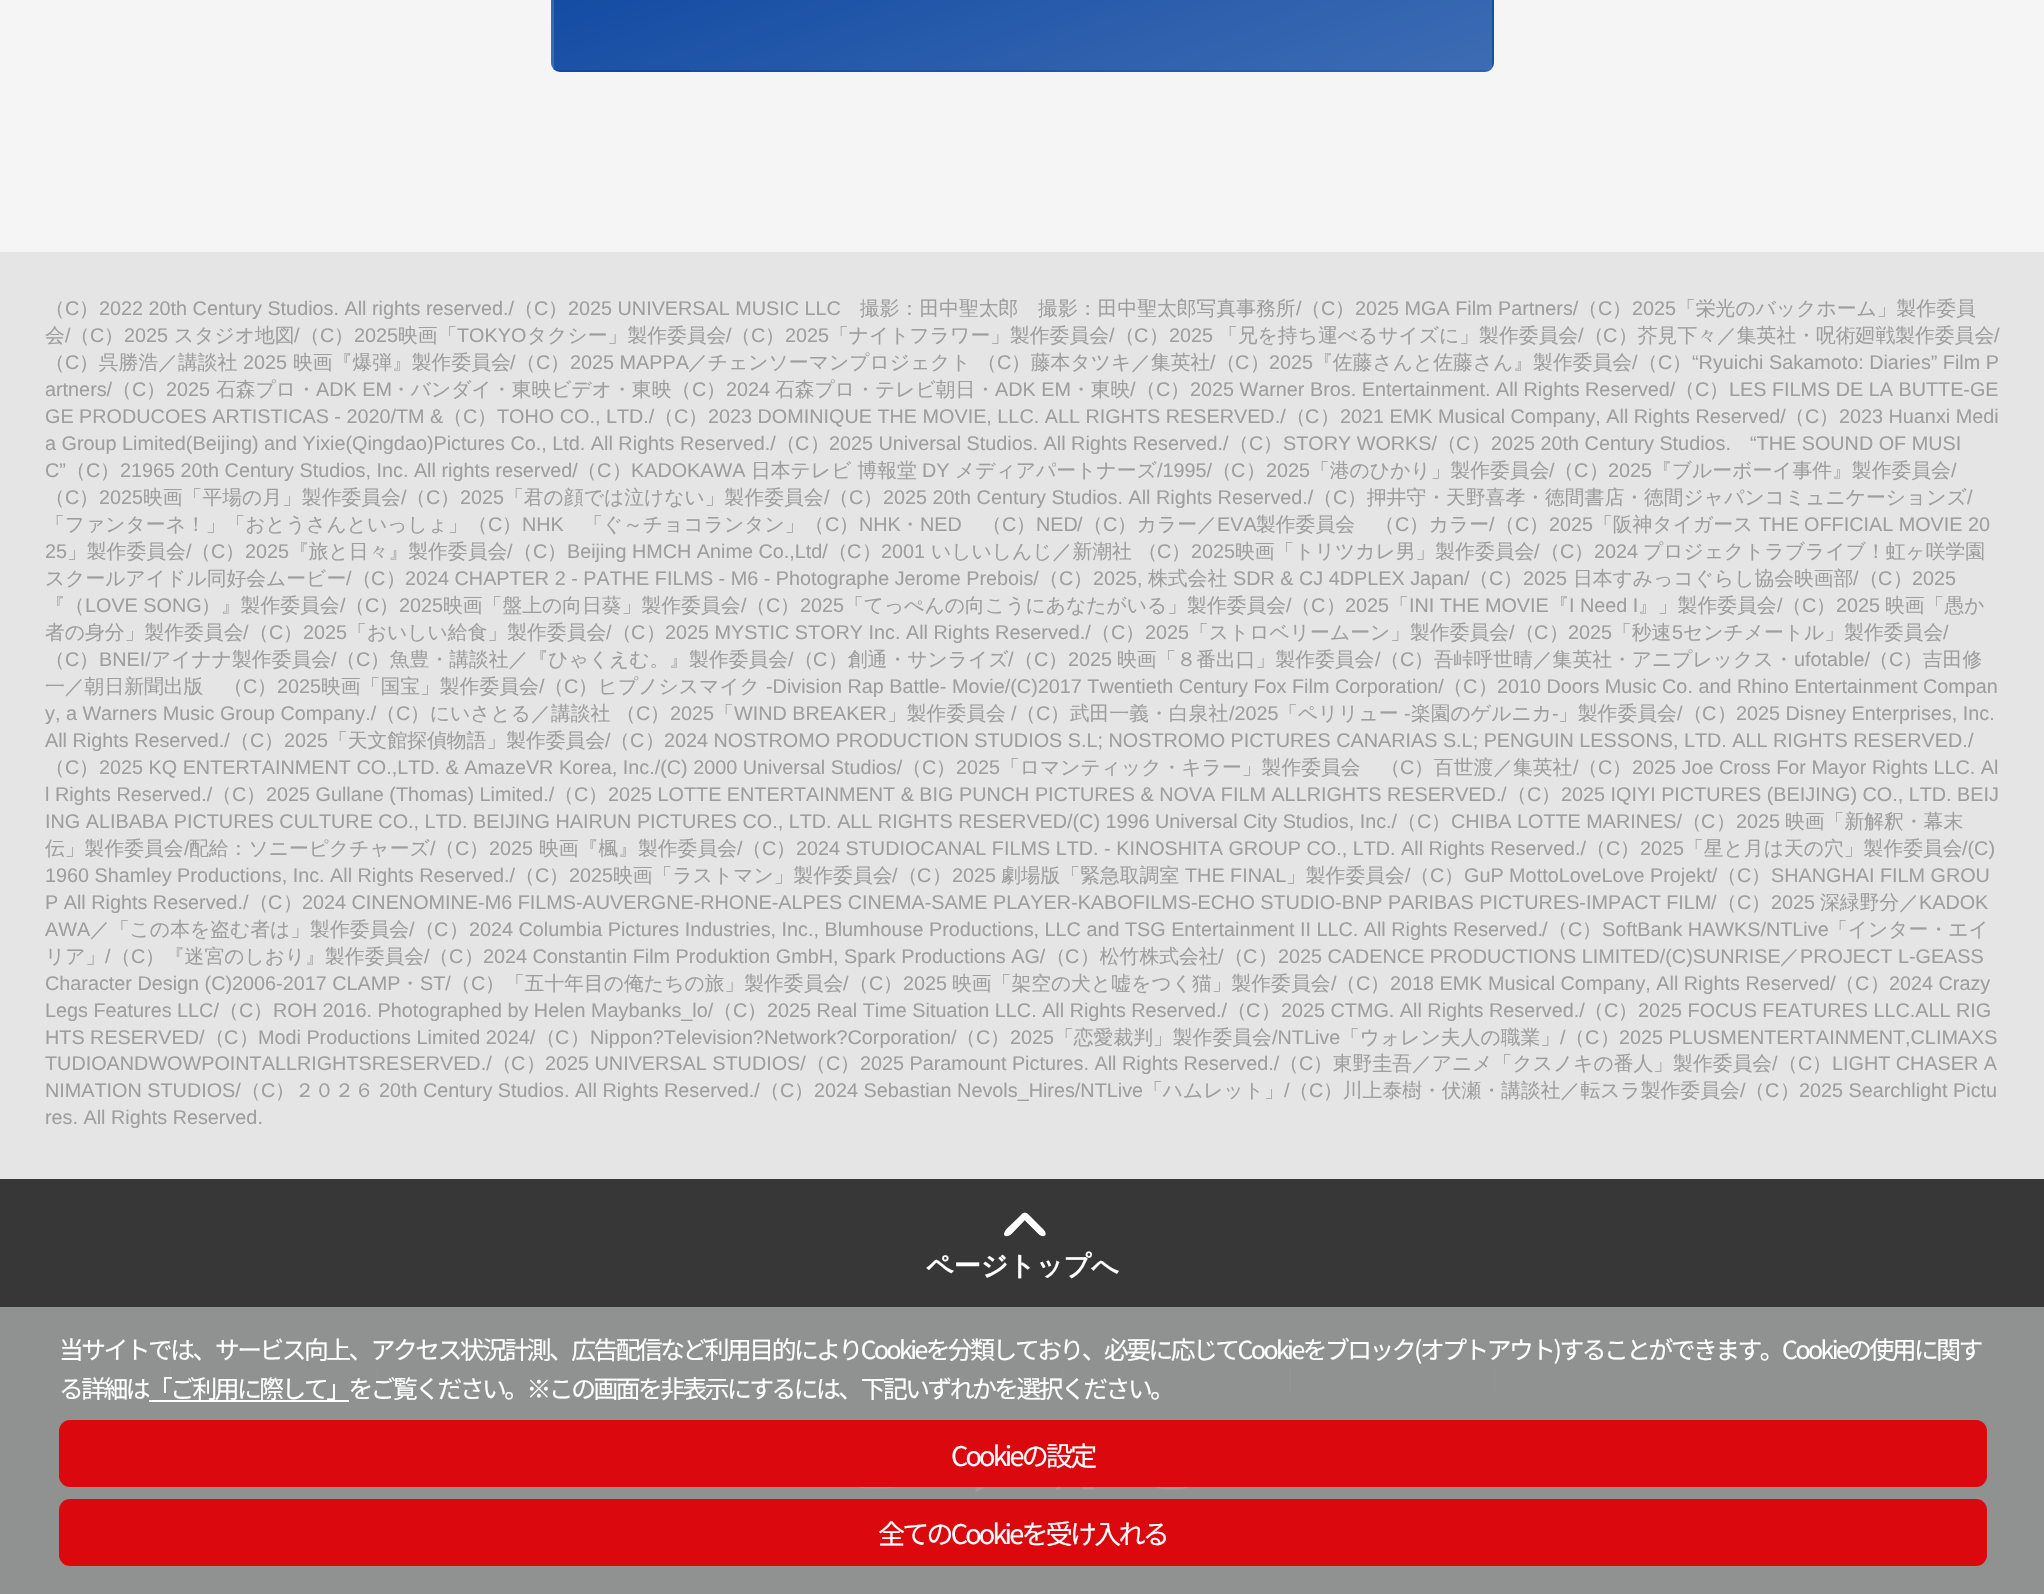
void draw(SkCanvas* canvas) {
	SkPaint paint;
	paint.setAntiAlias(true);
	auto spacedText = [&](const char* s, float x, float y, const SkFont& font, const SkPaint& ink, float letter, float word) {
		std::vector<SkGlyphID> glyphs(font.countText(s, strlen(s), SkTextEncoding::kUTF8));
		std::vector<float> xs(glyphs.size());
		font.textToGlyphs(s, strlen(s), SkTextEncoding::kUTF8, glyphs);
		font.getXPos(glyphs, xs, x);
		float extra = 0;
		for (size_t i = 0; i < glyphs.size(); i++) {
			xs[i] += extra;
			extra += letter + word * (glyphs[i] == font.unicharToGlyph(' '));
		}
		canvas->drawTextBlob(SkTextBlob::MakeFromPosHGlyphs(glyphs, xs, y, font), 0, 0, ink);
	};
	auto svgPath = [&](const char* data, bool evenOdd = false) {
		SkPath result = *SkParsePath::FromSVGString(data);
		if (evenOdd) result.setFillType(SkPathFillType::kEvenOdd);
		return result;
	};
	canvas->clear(0xfff5f5f5);
	paint.setColor(0xff0d47a1);
	canvas->drawRoundRect(SkRect::MakeXYWH(551, -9, 943, 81), 9, 9, paint);
	canvas->save();
	canvas->clipPath(svgPath("M560-67H1485C1490-67 1494-63 1494-58V63C1494 68 1490 72 1485 72H560C555 72 551 68 551 63V-58C551-63 555-67 560-67Z"), true);
	{
		const SkColor colors[] = {0x00ffffff, 0x33ffffff};
		const float stops[] = {0, 1};
		const SkPoint ends[] = {{7.8, -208}, {161, 213}};
		paint.setShader(SkGradientShader::MakeLinear(ends, colors, stops, 2, SkTileMode::kClamp));
		paint.setAlpha(255);
	}
	canvas->drawRect(SkRect::MakeXYWH(551, 0, 3, 70), paint);
	canvas->restore();
	{
		const SkColor colors[] = {0x00ffffff, 0x33ffffff};
		const float stops[] = {0, 1};
		const SkPoint ends[] = {{946, -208}, {1099, 213}};
		paint.setShader(SkGradientShader::MakeLinear(ends, colors, stops, 2, SkTileMode::kClamp));
		paint.setAlpha(255);
	}
	canvas->drawRect(SkRect::MakeXYWH(554, 0, 938, 70), paint);
	{
		const SkColor colors[] = {0x00ffffff, 0x33ffffff};
		const float stops[] = {0, 1};
		const SkPoint ends[] = {{1884, -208}, {2037, 213}};
		paint.setShader(SkGradientShader::MakeLinear(ends, colors, stops, 2, SkTileMode::kClamp));
		paint.setAlpha(255);
	}
	canvas->drawRect(SkRect::MakeXYWH(1492, 0, 2, 70), paint);
	canvas->save();
	canvas->clipPath(svgPath("M560-67H1485C1490-67 1494-63 1494-58V63C1494 68 1490 72 1485 72H560C555 72 551 68 551 63V-58C551-63 555-67 560-67Z"), true);
	{
		const SkColor colors[] = {0x00ffffff, 0x33ffffff};
		const float stops[] = {0, 1};
		const SkPoint ends[] = {{946, -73}, {1099, 348}};
		paint.setShader(SkGradientShader::MakeLinear(ends, colors, stops, 2, SkTileMode::kClamp));
		paint.setAlpha(255);
	}
	canvas->drawRect(SkRect::MakeXYWH(690, 70, 802, 2), paint);
	canvas->restore();
	paint.setShader(nullptr);
	paint.setColor(0xffe5e5e5);
	canvas->drawRect(SkRect::MakeXYWH(0, 252, 2044, 927), paint);
	SkFont f1(fontMgr->matchFamilyStyle("WenQuanYi Zen Hei", SkFontStyle(500, SkFontStyle::kNormal_Width, SkFontStyle::kUpright_Slant)), 19.8);
	f1.setSubpixel(true);
	paint.setColor(0xff9e9e9e);
	canvas->drawString("（", 45, 315, f1, paint);
	SkFont f2(fontMgr->matchFamilyStyle("Liberation Sans", SkFontStyle::Normal()), 19.8);
	f2.setSubpixel(true);
	canvas->drawString("C", 65, 315, f2, paint);
	canvas->drawString("）", 79, 315, f1, paint);
	canvas->drawString("2022 20th Century Studios. All rights reserved./", 99, 315, f2, paint);
	canvas->drawString("（", 514, 315, f1, paint);
	canvas->drawString("C", 534, 315, f2, paint);
	canvas->drawString("）", 548, 315, f1, paint);
	canvas->drawString("2025 UNIVERSAL MUSIC LLC", 568, 315, f2, paint);
	canvas->drawString("撮影：田中聖太郎　撮影：田中聖太郎写真事務所", 860, 315, f1, paint);
	canvas->drawString("/", 1296, 315, f2, paint);
	canvas->drawString("（", 1301, 315, f1, paint);
	canvas->drawString("C", 1321, 315, f2, paint);
	canvas->drawString("）", 1335, 315, f1, paint);
	canvas->drawString("2025 MGA Film Partners/", 1355, 315, f2, paint);
	canvas->drawString("（", 1578, 315, f1, paint);
	canvas->drawString("C", 1598, 315, f2, paint);
	canvas->drawString("）", 1612, 315, f1, paint);
	canvas->drawString("2025", 1632, 315, f2, paint);
	canvas->drawString("「栄光のバックホーム」製作委員", 1676, 315, f1, paint);
	canvas->drawString("会", 45, 342, f1, paint);
	canvas->drawString("/", 65, 342, f2, paint);
	canvas->drawString("（", 70, 342, f1, paint);
	canvas->drawString("C", 90, 342, f2, paint);
	canvas->drawString("）", 104, 342, f1, paint);
	canvas->drawString("2025", 124, 342, f2, paint);
	canvas->drawString("スタジオ地図", 174, 342, f1, paint);
	canvas->drawString("/", 294, 342, f2, paint);
	canvas->drawString("（", 300, 342, f1, paint);
	canvas->drawString("C", 320, 342, f2, paint);
	canvas->drawString("）", 334, 342, f1, paint);
	canvas->drawString("2025", 354, 342, f2, paint);
	canvas->drawString("映画「", 398, 342, f1, paint);
	canvas->drawString("TOKYO", 457, 342, f2, paint);
	canvas->drawString("タクシー」製作委員会", 527, 342, f1, paint);
	canvas->drawString("/", 726, 342, f2, paint);
	canvas->drawString("（", 731, 342, f1, paint);
	canvas->drawString("C", 751, 342, f2, paint);
	canvas->drawString("）", 765, 342, f1, paint);
	canvas->drawString("2025", 785, 342, f2, paint);
	canvas->drawString("「ナイトフラワー」製作委員会", 829, 342, f1, paint);
	canvas->drawString("/", 1109, 342, f2, paint);
	canvas->drawString("（", 1115, 342, f1, paint);
	canvas->drawString("C", 1134, 342, f2, paint);
	canvas->drawString("）", 1149, 342, f1, paint);
	canvas->drawString("2025", 1169, 342, f2, paint);
	canvas->drawString("「兄を持ち運べるサイズに」製作委員会", 1218, 342, f1, paint);
	canvas->drawString("/", 1578, 342, f2, paint);
	canvas->drawString("（", 1584, 342, f1, paint);
	canvas->drawString("C", 1603, 342, f2, paint);
	canvas->drawString("）芥見下々／集英社・呪術廻戦製作委員会", 1618, 342, f1, paint);
	canvas->drawString("/", 1994, 342, f2, paint);
	canvas->drawString("（", 45, 369, f1, paint);
	canvas->drawString("C", 65, 369, f2, paint);
	canvas->drawString("）呉勝浩／講談社", 79, 369, f1, paint);
	canvas->drawString("2025", 243, 369, f2, paint);
	canvas->drawString("映画『爆弾』製作委員会", 293, 369, f1, paint);
	canvas->drawString("/", 510, 369, f2, paint);
	canvas->drawString("（", 516, 369, f1, paint);
	canvas->drawString("C", 536, 369, f2, paint);
	canvas->drawString("）", 550, 369, f1, paint);
	canvas->drawString("2025 MAPPA", 570, 369, f2, paint);
	canvas->drawString("／チェンソーマンプロジェクト", 688, 369, f1, paint);
	canvas->drawString("（", 977, 369, f1, paint);
	canvas->drawString("C", 997, 369, f2, paint);
	canvas->drawString("）藤本タツキ／集英社", 1011, 369, f1, paint);
	canvas->drawString("/", 1210, 369, f2, paint);
	canvas->drawString("（", 1216, 369, f1, paint);
	canvas->drawString("C", 1235, 369, f2, paint);
	canvas->drawString("）", 1250, 369, f1, paint);
	canvas->drawString("2025", 1269, 369, f2, paint);
	canvas->drawString("『佐藤さんと佐藤さん』製作委員会", 1313, 369, f1, paint);
	canvas->drawString("/", 1632, 369, f2, paint);
	canvas->drawString("（", 1638, 369, f1, paint);
	canvas->drawString("C", 1658, 369, f2, paint);
	canvas->drawString("）", 1672, 369, f1, paint);
	canvas->drawString("“Ryuichi Sakamoto: Diaries” Film P", 1692, 369, f2, paint);
	canvas->drawString("artners/", 45, 396, f2, paint);
	canvas->drawString("（", 112, 396, f1, paint);
	canvas->drawString("C", 132, 396, f2, paint);
	canvas->drawString("）", 146, 396, f1, paint);
	canvas->drawString("2025", 166, 396, f2, paint);
	canvas->drawString("石森プロ・", 216, 396, f1, paint);
	canvas->drawString("ADK EM", 316, 396, f2, paint);
	canvas->drawString("・バンダイ・東映ビデオ・東映（", 391, 396, f1, paint);
	canvas->drawString("C", 692, 396, f2, paint);
	canvas->drawString("）", 706, 396, f1, paint);
	canvas->drawString("2024", 726, 396, f2, paint);
	canvas->drawString("石森プロ・テレビ朝日・", 775, 396, f1, paint);
	canvas->drawString("ADK EM", 995, 396, f2, paint);
	canvas->drawString("・東映", 1071, 396, f1, paint);
	canvas->drawString("/", 1130, 396, f2, paint);
	canvas->drawString("（", 1136, 396, f1, paint);
	canvas->drawString("C", 1156, 396, f2, paint);
	canvas->drawString("）", 1170, 396, f1, paint);
	canvas->drawString("2025 Warner Bros. Entertainment. All Rights Reserved/", 1190, 396, f2, paint);
	canvas->drawString("（", 1675, 396, f1, paint);
	canvas->drawString("C", 1695, 396, f2, paint);
	canvas->drawString("）", 1709, 396, f1, paint);
	canvas->drawString("LES FILMS DE LA BUTTE-GE", 1729, 396, f2, paint);
	canvas->drawString("GE PRODUCOES ARTISTICAS - 2020/TM &", 45, 423, f2, paint);
	canvas->drawString("（", 443, 423, f1, paint);
	canvas->drawString("C", 463, 423, f2, paint);
	canvas->drawString("）", 477, 423, f1, paint);
	canvas->drawString("TOHO CO., LTD./", 497, 423, f2, paint);
	canvas->drawString("（", 654, 423, f1, paint);
	canvas->drawString("C", 674, 423, f2, paint);
	canvas->drawString("）", 688, 423, f1, paint);
	canvas->drawString("2023 DOMINIQUE THE MOVIE, LLC. ALL RIGHTS RESERVED./", 708, 423, f2, paint);
	canvas->drawString("（", 1286, 423, f1, paint);
	canvas->drawString("C", 1305, 423, f2, paint);
	canvas->drawString("）", 1320, 423, f1, paint);
	canvas->drawString("2021 EMK Musical Company, All Rights Reserved/", 1340, 423, f2, paint);
	canvas->drawString("（", 1785, 423, f1, paint);
	canvas->drawString("C", 1805, 423, f2, paint);
	canvas->drawString("）", 1819, 423, f1, paint);
	canvas->drawString("2023 Huanxi Medi", 1839, 423, f2, paint);
	canvas->drawString("a Group Limited(Beijing) and Yixie(Qingdao)Pictures Co., Ltd. All Rights Reserved./", 45, 450, f2, paint);
	canvas->drawString("（", 776, 450, f1, paint);
	canvas->drawString("C", 795, 450, f2, paint);
	canvas->drawString("）", 810, 450, f1, paint);
	canvas->drawString("2025 Universal Studios. All Rights Reserved./", 829, 450, f2, paint);
	canvas->drawString("（", 1229, 450, f1, paint);
	canvas->drawString("C", 1249, 450, f2, paint);
	canvas->drawString("）", 1263, 450, f1, paint);
	canvas->drawString("STORY WORKS/", 1283, 450, f2, paint);
	canvas->drawString("（", 1437, 450, f1, paint);
	canvas->drawString("C", 1456, 450, f2, paint);
	canvas->drawString("）", 1471, 450, f1, paint);
	canvas->drawString("2025 20th Century Studios.", 1491, 450, f2, paint);
	canvas->drawString("“THE SOUND OF MUSI", 1750, 450, f2, paint);
	canvas->drawString("C”", 45, 477, f2, paint);
	canvas->drawString("（", 66, 477, f1, paint);
	canvas->drawString("C", 86, 477, f2, paint);
	canvas->drawString("）", 100, 477, f1, paint);
	canvas->drawString("21965 20th Century Studios, Inc. All rights reserved/", 120, 477, f2, paint);
	canvas->drawString("（", 577, 477, f1, paint);
	canvas->drawString("C", 597, 477, f2, paint);
	canvas->drawString("）", 612, 477, f1, paint);
	canvas->drawString("KADOKAWA", 631, 477, f2, paint);
	canvas->drawString("日本テレビ 博報堂", 751, 477, f1, paint);
	canvas->drawString("DY", 922, 477, f2, paint);
	canvas->drawString("メディアパートナーズ", 955, 477, f1, paint);
	canvas->drawString("/1995/", 1157, 477, f2, paint);
	canvas->drawString("（", 1212, 477, f1, paint);
	canvas->drawString("C", 1231, 477, f2, paint);
	canvas->drawString("）", 1246, 477, f1, paint);
	canvas->drawString("2025", 1266, 477, f2, paint);
	canvas->drawString("「港のひかり」製作委員会", 1310, 477, f1, paint);
	canvas->drawString("/", 1549, 477, f2, paint);
	canvas->drawString("（", 1554, 477, f1, paint);
	canvas->drawString("C", 1574, 477, f2, paint);
	canvas->drawString("）", 1589, 477, f1, paint);
	canvas->drawString("2025", 1608, 477, f2, paint);
	canvas->drawString("『ブルーボーイ事件』製作委員会", 1652, 477, f1, paint);
	canvas->drawString("/", 1951, 477, f2, paint);
	canvas->drawString("（", 45, 504, f1, paint);
	canvas->drawString("C", 65, 504, f2, paint);
	canvas->drawString("）", 79, 504, f1, paint);
	canvas->drawString("2025", 99, 504, f2, paint);
	canvas->drawString("映画「平場の月」製作委員会", 143, 504, f1, paint);
	canvas->drawString("/", 401, 504, f2, paint);
	canvas->drawString("（", 406, 504, f1, paint);
	canvas->drawString("C", 426, 504, f2, paint);
	canvas->drawString("）", 440, 504, f1, paint);
	canvas->drawString("2025", 460, 504, f2, paint);
	canvas->drawString("「君の顔では泣けない」製作委員会", 504, 504, f1, paint);
	canvas->drawString("/", 824, 504, f2, paint);
	canvas->drawString("（", 829, 504, f1, paint);
	canvas->drawString("C", 849, 504, f2, paint);
	canvas->drawString("）", 863, 504, f1, paint);
	canvas->drawString("2025 20th Century Studios. All Rights Reserved./", 883, 504, f2, paint);
	canvas->drawString("（", 1313, 504, f1, paint);
	canvas->drawString("C", 1333, 504, f2, paint);
	canvas->drawString("）押井守・天野喜孝・徳間書店・徳間ジャパンコミュニケーションズ", 1347, 504, f1, paint);
	canvas->drawString("/", 1967, 504, f2, paint);
	canvas->drawString("「ファンターネ！」「おとうさんといっしょ」（", 45, 531, f1, paint);
	canvas->drawString("C", 488, 531, f2, paint);
	canvas->drawString("）", 502, 531, f1, paint);
	canvas->drawString("NHK", 522, 531, f2, paint);
	canvas->drawString("「ぐ～チョコランタン」（", 583, 531, f1, paint);
	canvas->drawString("C", 825, 531, f2, paint);
	canvas->drawString("）", 839, 531, f1, paint);
	canvas->drawString("NHK", 859, 531, f2, paint);
	canvas->drawString("・", 900, 531, f1, paint);
	canvas->drawString("NED", 920, 531, f2, paint);
	canvas->drawString("（", 982, 531, f1, paint);
	canvas->drawString("C", 1002, 531, f2, paint);
	canvas->drawString("）", 1016, 531, f1, paint);
	canvas->drawString("NED", 1036, 531, f2, paint);
	canvas->drawString("/", 1077, 531, f2, paint);
	canvas->drawString("（", 1083, 531, f1, paint);
	canvas->drawString("C", 1103, 531, f2, paint);
	canvas->drawString("）カラー／", 1117, 531, f1, paint);
	canvas->drawString("EVA", 1217, 531, f2, paint);
	canvas->drawString("製作委員会　（", 1256, 531, f1, paint);
	canvas->drawString("C", 1395, 531, f2, paint);
	canvas->drawString("）カラー", 1409, 531, f1, paint);
	canvas->drawString("/", 1489, 531, f2, paint);
	canvas->drawString("（", 1495, 531, f1, paint);
	canvas->drawString("C", 1515, 531, f2, paint);
	canvas->drawString("）", 1529, 531, f1, paint);
	canvas->drawString("2025", 1549, 531, f2, paint);
	canvas->drawString("「阪神タイガース", 1593, 531, f1, paint);
	canvas->drawString("THE OFFICIAL MOVIE 20", 1759, 531, f2, paint);
	canvas->drawString("」製作委員会", 67, 558, f1, paint);
	canvas->drawString("/", 186, 558, f2, paint);
	canvas->drawString("『旅と日々』製作委員会", 289, 558, f1, paint);
	canvas->drawString("/", 507, 558, f2, paint);
	canvas->drawString("Beijing HMCH Anime Co.,Ltd/", 567, 558, f2, paint);
	canvas->drawString("いしいしんじ／新潮社 （", 931, 558, f1, paint);
	canvas->drawString("映画「トリツカレ男」製作委員会 （", 1235, 558, f1, paint);
	canvas->drawString("プロジェクトラブライブ！虹ヶ咲学園", 1643, 558, f1, paint);
	canvas->drawString("25", 45, 558, f2, paint);
	canvas->drawString("（", 191, 558, f1, paint);
	canvas->drawString("C", 211, 558, f2, paint);
	canvas->drawString("）", 225, 558, f1, paint);
	canvas->drawString("2025", 245, 558, f2, paint);
	canvas->drawString("（", 513, 558, f1, paint);
	canvas->drawString("C", 533, 558, f2, paint);
	canvas->drawString("）", 547, 558, f1, paint);
	canvas->drawString("（", 828, 558, f1, paint);
	canvas->drawString("C", 847, 558, f2, paint);
	canvas->drawString("）", 862, 558, f1, paint);
	canvas->drawString("2001", 881, 558, f2, paint);
	canvas->drawString("C", 1157, 558, f2, paint);
	canvas->drawString("）", 1171, 558, f1, paint);
	canvas->drawString("2025", 1191, 558, f2, paint);
	canvas->drawString("/", 1534, 558, f2, paint);
	canvas->drawString("C", 1560, 558, f2, paint);
	canvas->drawString("）", 1574, 558, f1, paint);
	canvas->drawString("2024", 1594, 558, f2, paint);
	canvas->drawString("スクールアイドル同好会ムービー", 45, 585, f1, paint);
	canvas->drawString("/", 346, 585, f2, paint);
	canvas->drawString("（", 352, 585, f1, paint);
	canvas->drawString("C", 371, 585, f2, paint);
	canvas->drawString("）", 386, 585, f1, paint);
	canvas->drawString("2024 CHAPTER 2 - PATHE FILMS - M6 - Photographe Jerome Prebois/", 405, 585, f2, paint);
	canvas->drawString("（", 1039, 585, f1, paint);
	canvas->drawString("C", 1059, 585, f2, paint);
	canvas->drawString("）", 1073, 585, f1, paint);
	canvas->drawString("2025,", 1093, 585, f2, paint);
	canvas->drawString("株式会社", 1148, 585, f1, paint);
	canvas->drawString("SDR & CJ 4DPLEX Japan/", 1233, 585, f2, paint);
	canvas->drawString("（", 1469, 585, f1, paint);
	canvas->drawString("C", 1489, 585, f2, paint);
	canvas->drawString("）", 1503, 585, f1, paint);
	canvas->drawString("2025", 1523, 585, f2, paint);
	canvas->drawString("日本すみっコぐらし協会映画部", 1573, 585, f1, paint);
	canvas->drawString("/", 1853, 585, f2, paint);
	canvas->drawString("（", 1859, 585, f1, paint);
	canvas->drawString("C", 1878, 585, f2, paint);
	canvas->drawString("）", 1893, 585, f1, paint);
	canvas->drawString("2025", 1912, 585, f2, paint);
	canvas->drawString("『（", 45, 612, f1, paint);
	canvas->drawString("LOVE SONG", 85, 612, f2, paint);
	canvas->drawString("）』製作委員会", 201, 612, f1, paint);
	canvas->drawString("/", 340, 612, f2, paint);
	canvas->drawString("（", 345, 612, f1, paint);
	canvas->drawString("C", 365, 612, f2, paint);
	canvas->drawString("）", 379, 612, f1, paint);
	canvas->drawString("2025", 399, 612, f2, paint);
	canvas->drawString("映画「盤上の向日葵」製作委員会", 443, 612, f1, paint);
	canvas->drawString("/", 741, 612, f2, paint);
	canvas->drawString("（", 746, 612, f1, paint);
	canvas->drawString("C", 766, 612, f2, paint);
	canvas->drawString("）", 780, 612, f1, paint);
	canvas->drawString("2025", 800, 612, f2, paint);
	canvas->drawString("「てっぺんの向こうにあなたがいる」製作委員会", 844, 612, f1, paint);
	canvas->drawString("/", 1286, 612, f2, paint);
	canvas->drawString("（", 1291, 612, f1, paint);
	canvas->drawString("C", 1311, 612, f2, paint);
	canvas->drawString("）", 1326, 612, f1, paint);
	canvas->drawString("2025", 1345, 612, f2, paint);
	canvas->drawString("「", 1389, 612, f1, paint);
	canvas->drawString("INI THE MOVIE", 1409, 612, f2, paint);
	canvas->drawString("『", 1549, 612, f1, paint);
	canvas->drawString("I Need I", 1569, 612, f2, paint);
	canvas->drawString("』」製作委員会", 1638, 612, f1, paint);
	canvas->drawString("/", 1777, 612, f2, paint);
	canvas->drawString("（", 1782, 612, f1, paint);
	canvas->drawString("C", 1802, 612, f2, paint);
	canvas->drawString("）", 1816, 612, f1, paint);
	canvas->drawString("2025", 1836, 612, f2, paint);
	canvas->drawString("映画「愚か", 1885, 612, f1, paint);
	canvas->drawString("者の身分」製作委員会", 45, 639, f1, paint);
	canvas->drawString("/", 243, 639, f2, paint);
	canvas->drawString("（", 249, 639, f1, paint);
	canvas->drawString("C", 269, 639, f2, paint);
	canvas->drawString("）", 283, 639, f1, paint);
	canvas->drawString("2025", 303, 639, f2, paint);
	canvas->drawString("「おいしい給食」製作委員会", 347, 639, f1, paint);
	canvas->drawString("/", 606, 639, f2, paint);
	canvas->drawString("（", 612, 639, f1, paint);
	canvas->drawString("C", 631, 639, f2, paint);
	canvas->drawString("）", 646, 639, f1, paint);
	canvas->drawString("2025 MYSTIC STORY Inc. All Rights Reserved./", 665, 639, f2, paint);
	canvas->drawString("（", 1091, 639, f1, paint);
	canvas->drawString("C", 1111, 639, f2, paint);
	canvas->drawString("）", 1125, 639, f1, paint);
	canvas->drawString("2025", 1145, 639, f2, paint);
	canvas->drawString("「ストロベリームーン」製作委員会", 1189, 639, f1, paint);
	canvas->drawString("/", 1509, 639, f2, paint);
	canvas->drawString("（", 1515, 639, f1, paint);
	canvas->drawString("C", 1534, 639, f2, paint);
	canvas->drawString("）", 1549, 639, f1, paint);
	canvas->drawString("2025", 1568, 639, f2, paint);
	canvas->drawString("「秒速", 1612, 639, f1, paint);
	canvas->drawString("5", 1672, 639, f2, paint);
	canvas->drawString("センチメートル」製作委員会", 1683, 639, f1, paint);
	canvas->drawString("/", 1943, 639, f2, paint);
	canvas->drawString("（", 45, 666, f1, paint);
	canvas->drawString("C", 65, 666, f2, paint);
	canvas->drawString("）", 79, 666, f1, paint);
	canvas->drawString("BNEI/", 99, 666, f2, paint);
	canvas->drawString("アイナナ製作委員会", 151, 666, f1, paint);
	canvas->drawString("/", 331, 666, f2, paint);
	canvas->drawString("（", 336, 666, f1, paint);
	canvas->drawString("C", 356, 666, f2, paint);
	canvas->drawString("）魚豊・講談社／『ひゃくえむ。』製作委員会", 370, 666, f1, paint);
	canvas->drawString("/", 788, 666, f2, paint);
	canvas->drawString("（", 794, 666, f1, paint);
	canvas->drawString("C", 813, 666, f2, paint);
	canvas->drawString("）創通・サンライズ", 828, 666, f1, paint);
	canvas->drawString("/", 1008, 666, f2, paint);
	canvas->drawString("（", 1014, 666, f1, paint);
	canvas->drawString("C", 1034, 666, f2, paint);
	canvas->drawString("）", 1048, 666, f1, paint);
	canvas->drawString("2025", 1068, 666, f2, paint);
	canvas->drawString("映画「８番出口」製作委員会", 1117, 666, f1, paint);
	canvas->drawString("/", 1375, 666, f2, paint);
	canvas->drawString("（", 1380, 666, f1, paint);
	canvas->drawString("C", 1400, 666, f2, paint);
	canvas->drawString("）吾峠呼世晴／集英社・アニプレックス・", 1414, 666, f1, paint);
	canvas->drawString("ufotable/", 1794, 666, f2, paint);
	canvas->drawString("（", 1869, 666, f1, paint);
	canvas->drawString("C", 1889, 666, f2, paint);
	canvas->drawString("）吉田修", 1903, 666, f1, paint);
	canvas->drawString("一／朝日新聞出版　（", 45, 693, f1, paint);
	canvas->drawString("C", 243, 693, f2, paint);
	canvas->drawString("）", 257, 693, f1, paint);
	canvas->drawString("2025", 277, 693, f2, paint);
	canvas->drawString("映画「国宝」製作委員会", 321, 693, f1, paint);
	canvas->drawString("/", 539, 693, f2, paint);
	canvas->drawString("（", 544, 693, f1, paint);
	canvas->drawString("C", 564, 693, f2, paint);
	canvas->drawString("）ヒプノシスマイク", 578, 693, f1, paint);
	canvas->drawString("-Division Rap Battle- Movie/(C)2017 Twentieth Century Fox Film Corporation/", 766, 693, f2, paint);
	canvas->drawString("（", 1443, 693, f1, paint);
	canvas->drawString("C", 1463, 693, f2, paint);
	canvas->drawString("）", 1478, 693, f1, paint);
	canvas->drawString("2010 Doors Music Co. and Rhino Entertainment Compan", 1497, 693, f2, paint);
	canvas->drawString("y, a Warners Music Group Company./", 45, 720, f2, paint);
	canvas->drawString("（", 376, 720, f1, paint);
	canvas->drawString("C", 396, 720, f2, paint);
	canvas->drawString("）にいさとる／講談社", 410, 720, f1, paint);
	canvas->drawString("（", 616, 720, f1, paint);
	canvas->drawString("C", 636, 720, f2, paint);
	canvas->drawString("）", 650, 720, f1, paint);
	canvas->drawString("2025", 670, 720, f2, paint);
	canvas->drawString("「", 714, 720, f1, paint);
	canvas->drawString("WIND BREAKER", 734, 720, f2, paint);
	canvas->drawString("」製作委員会", 887, 720, f1, paint);
	canvas->drawString("/", 1011, 720, f2, paint);
	canvas->drawString("（", 1016, 720, f1, paint);
	canvas->drawString("C", 1036, 720, f2, paint);
	canvas->drawString("）武田一義・白泉社", 1050, 720, f1, paint);
	canvas->drawString("/2025", 1229, 720, f2, paint);
	canvas->drawString("「ペリリュー", 1278, 720, f1, paint);
	canvas->drawString("-", 1404, 720, f2, paint);
	canvas->drawString("楽園のゲルニカ", 1411, 720, f1, paint);
	canvas->drawString("-", 1552, 720, f2, paint);
	canvas->drawString("」製作委員会", 1558, 720, f1, paint);
	canvas->drawString("/", 1677, 720, f2, paint);
	canvas->drawString("（", 1683, 720, f1, paint);
	canvas->drawString("C", 1702, 720, f2, paint);
	canvas->drawString("）", 1717, 720, f1, paint);
	canvas->drawString("2025 Disney Enterprises, Inc.", 1736, 720, f2, paint);
	canvas->drawString("All Rights Reserved./", 45, 747, f2, paint);
	canvas->drawString("（", 230, 747, f1, paint);
	canvas->drawString("C", 250, 747, f2, paint);
	canvas->drawString("）", 264, 747, f1, paint);
	canvas->drawString("2025", 284, 747, f2, paint);
	canvas->drawString("「天文館探偵物語」製作委員会", 328, 747, f1, paint);
	canvas->drawString("/", 605, 747, f2, paint);
	canvas->drawString("（", 610, 747, f1, paint);
	canvas->drawString("C", 630, 747, f2, paint);
	canvas->drawString("）", 645, 747, f1, paint);
	canvas->drawString("2024 NOSTROMO PRODUCTION STUDIOS S.L; NOSTROMO PICTURES CANARIAS S.L; PENGUIN LESSONS, LTD. ALL RIGHTS RESERVED.", 664, 747, f2, paint);
	canvas->drawString("/", 1968, 747, f2, paint);
	canvas->drawString("（", 45, 774, f1, paint);
	canvas->drawString("C", 65, 774, f2, paint);
	canvas->drawString("）", 79, 774, f1, paint);
	canvas->drawString("2025 KQ ENTERTAINMENT CO.,LTD. & AmazeVR Korea, Inc./(C) 2000 Universal Studios/", 99, 774, f2, paint);
	canvas->drawString("（", 902, 774, f1, paint);
	canvas->drawString("C", 922, 774, f2, paint);
	canvas->drawString("）", 936, 774, f1, paint);
	canvas->drawString("2025", 956, 774, f2, paint);
	canvas->drawString("「ロマンティック・キラー」製作委員会　（", 1000, 774, f1, paint);
	canvas->drawString("C", 1400, 774, f2, paint);
	canvas->drawString("）百世渡／集英社", 1414, 774, f1, paint);
	canvas->drawString("/", 1573, 774, f2, paint);
	canvas->drawString("（", 1578, 774, f1, paint);
	canvas->drawString("C", 1598, 774, f2, paint);
	canvas->drawString("）", 1612, 774, f1, paint);
	canvas->drawString("2025 Joe Cross For Mayor Rights LLC. Al", 1632, 774, f2, paint);
	canvas->drawString("l Rights Reserved./", 45, 801, f2, paint);
	canvas->drawString("（", 212, 801, f1, paint);
	canvas->drawString("C", 232, 801, f2, paint);
	canvas->drawString("）", 246, 801, f1, paint);
	canvas->drawString("2025 Gullane (Thomas) Limited./", 266, 801, f2, paint);
	canvas->drawString("（", 554, 801, f1, paint);
	canvas->drawString("C", 574, 801, f2, paint);
	canvas->drawString("）", 588, 801, f1, paint);
	canvas->drawString("2025 LOTTE ENTERTAINMENT & BIG PUNCH PICTURES & NOVA FILM ALLRIGHTS RESERVED.", 608, 801, f2, paint);
	canvas->drawString("/", 1501, 801, f2, paint);
	canvas->drawString("（", 1507, 801, f1, paint);
	canvas->drawString("C", 1527, 801, f2, paint);
	canvas->drawString("）", 1541, 801, f1, paint);
	canvas->drawString("2025 IQIYI PICTURES (BEIJING) CO., LTD. BEIJ", 1561, 801, f2, paint);
	canvas->drawString("ING ALIBABA PICTURES CULTURE CO., LTD. BEIJING HAIRUN PICTURES CO., LTD. ALL RIGHTS RESERVED", 45, 828, f2, paint);
	canvas->drawString("/(C) 1996 Universal City Studios, Inc./", 1067, 828, f2, paint);
	canvas->drawString("（", 1397, 828, f1, paint);
	canvas->drawString("C", 1417, 828, f2, paint);
	canvas->drawString("）", 1431, 828, f1, paint);
	canvas->drawString("CHIBA LOTTE MARINES/", 1451, 828, f2, paint);
	canvas->drawString("（", 1682, 828, f1, paint);
	canvas->drawString("C", 1701, 828, f2, paint);
	canvas->drawString("）", 1716, 828, f1, paint);
	canvas->drawString("2025", 1736, 828, f2, paint);
	canvas->drawString("映画「新解釈・幕末", 1785, 828, f1, paint);
	canvas->drawString("伝」製作委員会", 45, 855, f1, paint);
	canvas->drawString("/", 184, 855, f2, paint);
	canvas->drawString("配給：ソニーピクチャーズ", 189, 855, f1, paint);
	canvas->drawString("/", 430, 855, f2, paint);
	canvas->drawString("（", 435, 855, f1, paint);
	canvas->drawString("C", 455, 855, f2, paint);
	canvas->drawString("）", 469, 855, f1, paint);
	canvas->drawString("2025", 489, 855, f2, paint);
	canvas->drawString("映画『楓』製作委員会", 539, 855, f1, paint);
	canvas->drawString("/", 737, 855, f2, paint);
	canvas->drawString("（", 742, 855, f1, paint);
	canvas->drawString("C", 762, 855, f2, paint);
	canvas->drawString("）", 776, 855, f1, paint);
	canvas->drawString("2024 STUDIOCANAL FILMS LTD. - KINOSHITA GROUP CO., LTD. All Rights Reserved./", 796, 855, f2, paint);
	canvas->drawString("（", 1586, 855, f1, paint);
	canvas->drawString("C", 1606, 855, f2, paint);
	canvas->drawString("）", 1620, 855, f1, paint);
	canvas->drawString("2025", 1640, 855, f2, paint);
	canvas->drawString("「星と月は天の穴」製作委員会", 1684, 855, f1, paint);
	canvas->drawString("/(C)", 1962, 855, f2, paint);
	canvas->drawString("1960 Shamley Productions, Inc. All Rights Reserved./", 45, 882, f2, paint);
	canvas->drawString("（", 515, 882, f1, paint);
	canvas->drawString("C", 535, 882, f2, paint);
	canvas->drawString("）", 549, 882, f1, paint);
	canvas->drawString("2025", 569, 882, f2, paint);
	canvas->drawString("映画「ラストマン」製作委員会", 613, 882, f1, paint);
	canvas->drawString("/", 892, 882, f2, paint);
	canvas->drawString("（", 898, 882, f1, paint);
	canvas->drawString("C", 917, 882, f2, paint);
	canvas->drawString("）", 932, 882, f1, paint);
	canvas->drawString("2025", 952, 882, f2, paint);
	canvas->drawString("劇場版「緊急取調室", 1001, 882, f1, paint);
	canvas->drawString("THE FINAL", 1185, 882, f2, paint);
	canvas->drawString("」製作委員会", 1286, 882, f1, paint);
	canvas->drawString("/", 1405, 882, f2, paint);
	canvas->drawString("（", 1410, 882, f1, paint);
	canvas->drawString("C", 1430, 882, f2, paint);
	canvas->drawString("）", 1444, 882, f1, paint);
	canvas->drawString("GuP MottoLoveLove Projekt/", 1464, 882, f2, paint);
	canvas->drawString("（", 1717, 882, f1, paint);
	canvas->drawString("C", 1737, 882, f2, paint);
	canvas->drawString("）", 1751, 882, f1, paint);
	canvas->drawString("SHANGHAI FILM GROU", 1771, 882, f2, paint);
	canvas->drawString("P All Rights Reserved./", 45, 909, f2, paint);
	canvas->drawString("（", 249, 909, f1, paint);
	canvas->drawString("C", 268, 909, f2, paint);
	canvas->drawString("）", 283, 909, f1, paint);
	canvas->drawString("2024 CINENOMINE-M6 FILMS-AUVERGNE-RHONE-ALPES CINEMA-SAME PLAYER-KABOFILMS-ECHO STUDIO-BNP PARIBAS PICTURES-IMPACT FILM", 302, 909, f2, paint);
	canvas->drawString("/", 1711, 909, f2, paint);
	canvas->drawString("（", 1717, 909, f1, paint);
	canvas->drawString("C", 1737, 909, f2, paint);
	canvas->drawString("）", 1751, 909, f1, paint);
	canvas->drawString("2025", 1771, 909, f2, paint);
	canvas->drawString("深緑野分／", 1820, 909, f1, paint);
	canvas->drawString("KADOK", 1919, 909, f2, paint);
	canvas->drawString("AWA", 45, 936, f2, paint);
	canvas->drawString("／「この本を盗む者は」製作委員会", 90, 936, f1, paint);
	canvas->drawString("/", 409, 936, f2, paint);
	canvas->drawString("（", 415, 936, f1, paint);
	canvas->drawString("C", 434, 936, f2, paint);
	canvas->drawString("）", 449, 936, f1, paint);
	canvas->drawString("2024 Columbia Pictures Industries, Inc., Blumhouse Productions, LLC and TSG Entertainment II LLC. All Rights Reserved.", 469, 936, f2, paint);
	canvas->drawString("/", 1542, 936, f2, paint);
	canvas->drawString("（", 1548, 936, f1, paint);
	canvas->drawString("C", 1568, 936, f2, paint);
	canvas->drawString("）", 1582, 936, f1, paint);
	canvas->drawString("SoftBank HAWKS/NTLive", 1602, 936, f2, paint);
	canvas->drawString("「インター・エイ", 1828, 936, f1, paint);
	canvas->drawString("リア」", 45, 963, f1, paint);
	canvas->drawString("/", 105, 963, f2, paint);
	canvas->drawString("（", 111, 963, f1, paint);
	canvas->drawString("C", 131, 963, f2, paint);
	canvas->drawString("）『迷宮のしおり』製作委員会", 145, 963, f1, paint);
	canvas->drawString("/", 424, 963, f2, paint);
	canvas->drawString("（", 429, 963, f1, paint);
	canvas->drawString("C", 449, 963, f2, paint);
	canvas->drawString("）", 464, 963, f1, paint);
	canvas->drawString("2024 Constantin Film Produktion GmbH, Spark Productions AG/", 483, 963, f2, paint);
	canvas->drawString("（", 1046, 963, f1, paint);
	canvas->drawString("C", 1065, 963, f2, paint);
	canvas->drawString("）松竹株式会社", 1080, 963, f1, paint);
	canvas->drawString("/", 1218, 963, f2, paint);
	canvas->drawString("（", 1224, 963, f1, paint);
	canvas->drawString("C", 1243, 963, f2, paint);
	canvas->drawString("）", 1258, 963, f1, paint);
	canvas->drawString("2025 CADENCE PRODUCTIONS LIMITED/(C)SUNRISE", 1278, 963, f2, paint);
	canvas->drawString("／", 1780, 963, f1, paint);
	canvas->drawString("PROJECT L-GEASS", 1800, 963, f2, paint);
	canvas->drawString("Character Design (C)2006-2017 CLAMP", 45, 990, f2, paint);
	canvas->drawString("・", 400, 990, f1, paint);
	canvas->drawString("ST/", 420, 990, f2, paint);
	canvas->drawString("（", 451, 990, f1, paint);
	canvas->drawString("C", 471, 990, f2, paint);
	canvas->drawString("）「五十年目の俺たちの旅」製作委員会", 485, 990, f1, paint);
	canvas->drawString("/", 843, 990, f2, paint);
	canvas->drawString("（", 849, 990, f1, paint);
	canvas->drawString("C", 869, 990, f2, paint);
	canvas->drawString("）", 883, 990, f1, paint);
	canvas->drawString("2025", 903, 990, f2, paint);
	canvas->drawString("映画「架空の犬と嘘をつく猫」製作委員会", 952, 990, f1, paint);
	canvas->drawString("/", 1331, 990, f2, paint);
	canvas->drawString("（", 1336, 990, f1, paint);
	canvas->drawString("C", 1356, 990, f2, paint);
	canvas->drawString("）", 1370, 990, f1, paint);
	canvas->drawString("2018 EMK Musical Company, All Rights Reserved/", 1390, 990, f2, paint);
	canvas->drawString("（", 1835, 990, f1, paint);
	canvas->drawString("C", 1855, 990, f2, paint);
	canvas->drawString("）", 1870, 990, f1, paint);
	canvas->drawString("2024 Crazy", 1889, 990, f2, paint);
	canvas->drawString("Legs Features LLC/", 45, 1017, f2, paint);
	canvas->drawString("（", 219, 1017, f1, paint);
	canvas->drawString("C", 239, 1017, f2, paint);
	canvas->drawString("）", 253, 1017, f1, paint);
	canvas->drawString("ROH 2016. Photographed by Helen Maybanks_lo/", 273, 1017, f2, paint);
	canvas->drawString("（", 713, 1017, f1, paint);
	canvas->drawString("C", 733, 1017, f2, paint);
	canvas->drawString("）", 747, 1017, f1, paint);
	canvas->drawString("2025 Real Time Situation LLC. All Rights Reserved./", 767, 1017, f2, paint);
	canvas->drawString("（", 1227, 1017, f1, paint);
	canvas->drawString("C", 1246, 1017, f2, paint);
	canvas->drawString("）", 1261, 1017, f1, paint);
	canvas->drawString("2025 CTMG. All Rights Reserved./", 1281, 1017, f2, paint);
	canvas->drawString("（", 1584, 1017, f1, paint);
	canvas->drawString("C", 1604, 1017, f2, paint);
	canvas->drawString("）", 1618, 1017, f1, paint);
	canvas->drawString("2025 FOCUS FEATURES LLC.ALL RIG", 1638, 1017, f2, paint);
	canvas->drawString("HTS RESERVED/", 45, 1044, f2, paint);
	canvas->drawString("（", 205, 1044, f1, paint);
	canvas->drawString("C", 224, 1044, f2, paint);
	canvas->drawString("）", 239, 1044, f1, paint);
	canvas->drawString("Modi Productions Limited 2024/", 258, 1044, f2, paint);
	canvas->drawString("（", 536, 1044, f1, paint);
	canvas->drawString("C", 555, 1044, f2, paint);
	canvas->drawString("）", 570, 1044, f1, paint);
	canvas->drawString("Nippon?Television?Network?Corporation/", 590, 1044, f2, paint);
	canvas->drawString("（", 956, 1044, f1, paint);
	canvas->drawString("C", 976, 1044, f2, paint);
	canvas->drawString("）", 990, 1044, f1, paint);
	canvas->drawString("2025", 1010, 1044, f2, paint);
	canvas->drawString("「恋愛裁判」製作委員会", 1054, 1044, f1, paint);
	canvas->drawString("/NTLive", 1272, 1044, f2, paint);
	canvas->drawString("「ウォレン夫人の職業」", 1340, 1044, f1, paint);
	canvas->drawString("/", 1560, 1044, f2, paint);
	canvas->drawString("（", 1565, 1044, f1, paint);
	canvas->drawString("C", 1585, 1044, f2, paint);
	canvas->drawString("）", 1600, 1044, f1, paint);
	canvas->drawString("2025 PLUSMENTERTAINMENT,CLIMAXS", 1619, 1044, f2, paint);
	canvas->drawString("TUDIOANDWOWPOINTALLRIGHTSRESERVED./", 45, 1070, f2, paint);
	canvas->drawString("（", 492, 1070, f1, paint);
	canvas->drawString("C", 511, 1070, f2, paint);
	canvas->drawString("）", 526, 1070, f1, paint);
	canvas->drawString("2025 UNIVERSAL STUDIOS/", 545, 1070, f2, paint);
	canvas->drawString("（", 806, 1070, f1, paint);
	canvas->drawString("C", 826, 1070, f2, paint);
	canvas->drawString("）", 840, 1070, f1, paint);
	canvas->drawString("2025 Paramount Pictures. All Rights Reserved./", 860, 1070, f2, paint);
	canvas->drawString("（", 1279, 1070, f1, paint);
	canvas->drawString("C", 1299, 1070, f2, paint);
	canvas->drawString("）東野圭吾／アニメ「クスノキの番人」製作委員会", 1313, 1070, f1, paint);
	canvas->drawString("/", 1772, 1070, f2, paint);
	canvas->drawString("（", 1778, 1070, f1, paint);
	canvas->drawString("C", 1798, 1070, f2, paint);
	canvas->drawString("）", 1812, 1070, f1, paint);
	canvas->drawString("LIGHT CHASER A", 1832, 1070, f2, paint);
	canvas->drawString("NIMATION STUDIOS/", 45, 1097, f2, paint);
	canvas->drawString("（", 241, 1097, f1, paint);
	canvas->drawString("C", 261, 1097, f2, paint);
	canvas->drawString("）２０２６", 275, 1097, f1, paint);
	canvas->drawString("20th Century Studios. All Rights Reserved./", 379, 1097, f2, paint);
	canvas->drawString("（", 760, 1097, f1, paint);
	canvas->drawString("C", 780, 1097, f2, paint);
	canvas->drawString("）", 794, 1097, f1, paint);
	canvas->drawString("2024 Sebastian Nevols_Hires/NTLive", 814, 1097, f2, paint);
	canvas->drawString("「ハムレット」", 1143, 1097, f1, paint);
	canvas->drawString("/", 1284, 1097, f2, paint);
	canvas->drawString("（", 1289, 1097, f1, paint);
	canvas->drawString("C", 1309, 1097, f2, paint);
	canvas->drawString("）川上泰樹・伏瀬・講談社／転スラ製作委員会", 1323, 1097, f1, paint);
	canvas->drawString("/", 1740, 1097, f2, paint);
	canvas->drawString("（", 1745, 1097, f1, paint);
	canvas->drawString("C", 1765, 1097, f2, paint);
	canvas->drawString("）", 1780, 1097, f1, paint);
	canvas->drawString("2025 Searchlight Pictu", 1799, 1097, f2, paint);
	canvas->drawString("res. All Rights Reserved.", 45, 1124, f2, paint);
	paint.setColor(0xff424242);
	canvas->drawRect(SkRect::MakeXYWH(0, 1314, 2044, 280), paint);
	paint.setColor(0xff373737);
	canvas->drawRect(SkRect::MakeXYWH(0, 1179, 2044, 135), paint);
	paint.setColor(0xffffffff);
	canvas->drawPath(svgPath("M1007 1228.5L1020 1216C1022.5 1213 1025.5 1212 1027 1213.5C1028.5 1214.5 1027.5 1218 1024.5 1220.5L1012 1233.5C1009.5 1236 1006 1237 1004.5 1235.5C1003.5 1234.5 1004.5 1231 1007 1228.5Z"), paint);
	canvas->drawPath(svgPath("M1030 1216L1042.5 1228.5C1045.5 1231 1046.5 1234.5 1045 1235.5C1043.5 1237 1040.5 1236 1038 1233.5L1025 1220.5C1022.5 1218 1021.5 1214.5 1022.5 1213.5C1024 1212 1027.5 1213 1030 1216Z"), paint);
	SkFont f3(fontMgr->matchFamilyStyle("WenQuanYi Zen Hei", SkFontStyle::Bold()), 27);
	f3.setSubpixel(true);
	canvas->drawString("ページトップへ", 926, 1275, f3, paint);
	paint.setColor(0xff616161);
	canvas->drawRect(SkRect::MakeXYWH(169, 1368, 2, 25), paint);
	canvas->drawRect(SkRect::MakeXYWH(376, 1368, 2, 25), paint);
	canvas->drawRect(SkRect::MakeXYWH(720, 1368, 2, 25), paint);
	canvas->drawRect(SkRect::MakeXYWH(1062, 1368, 2, 25), paint);
	canvas->drawRect(SkRect::MakeXYWH(1289, 1368, 2, 25), paint);
	canvas->drawRect(SkRect::MakeXYWH(1494, 1368, 2, 25), paint);
	canvas->drawImageRect(SkImages::DeferredFromEncodedData(SkData::MakeFromFileName("img1.png")), SkRect::MakeXYWH(859, 1487, 38, 2), SkSamplingOptions());
	canvas->drawImageRect(SkImages::DeferredFromEncodedData(SkData::MakeFromFileName("img2.png")), SkRect::MakeXYWH(975, 1487, 10, 5), SkSamplingOptions());
	canvas->drawImageRect(SkImages::DeferredFromEncodedData(SkData::MakeFromFileName("img3.png")), SkRect::MakeXYWH(1055, 1487, 40, 3), SkSamplingOptions());
	canvas->drawImageRect(SkImages::DeferredFromEncodedData(SkData::MakeFromFileName("img4.png")), SkRect::MakeXYWH(1156, 1487, 32, 3), SkSamplingOptions());
	paint.setColor(0xff383838);
	canvas->drawRect(SkRect::MakeXYWH(0, 1539, 2044, 2), paint);
	paint.setColor(0xf0959696);
	canvas->drawRect(SkRect::MakeXYWH(0, 1307, 2044, 287), paint);
	SkFont f4(fontMgr->matchFamilyStyle("Noto Sans CJK JP", SkFontStyle::Normal()), 24.75);
	f4.setSubpixel(true);
	paint.setColor(0xffffffff);
	spacedText("当サイトでは、サービス向上、アクセス状況計測、広告配信など利用目的によりCookieを分類しており、必要に応じてCookieをブロック(オプトアウト)することができます。Cookieの使用に関す", 59, 1359, f4, paint, -2.48, 0);
	spacedText("る詳細は", 59, 1398, f4, paint, -2.48, 0);
	canvas->drawRect(SkRect::MakeXYWH(149, 1400, 200, 2), paint);
	spacedText("「ご利用に際して」をご覧ください。※この画面を非表示にするには、下記いずれかを選択ください。", 148, 1398, f4, paint, -2.48, 0);
	paint.setColor(0xffdb080d);
	canvas->drawRoundRect(SkRect::MakeXYWH(59, 1420, 1928, 67), 11, 11, paint);
	SkFont f5(fontMgr->matchFamilyStyle("Noto Sans CJK JP", SkFontStyle::Normal()), 27);
	f5.setSubpixel(true);
	paint.setColor(0xffffffff);
	spacedText("Cookieの設定", 951, 1466, f5, paint, -2.75, 0);
	paint.setColor(0xffdb080d);
	canvas->drawRoundRect(SkRect::MakeXYWH(59, 1499, 1928, 67), 11, 11, paint);
	paint.setColor(0xffffffff);
	spacedText("全てのCookieを受け入れる", 878, 1544, f5, paint, -2.75, 0);
}
